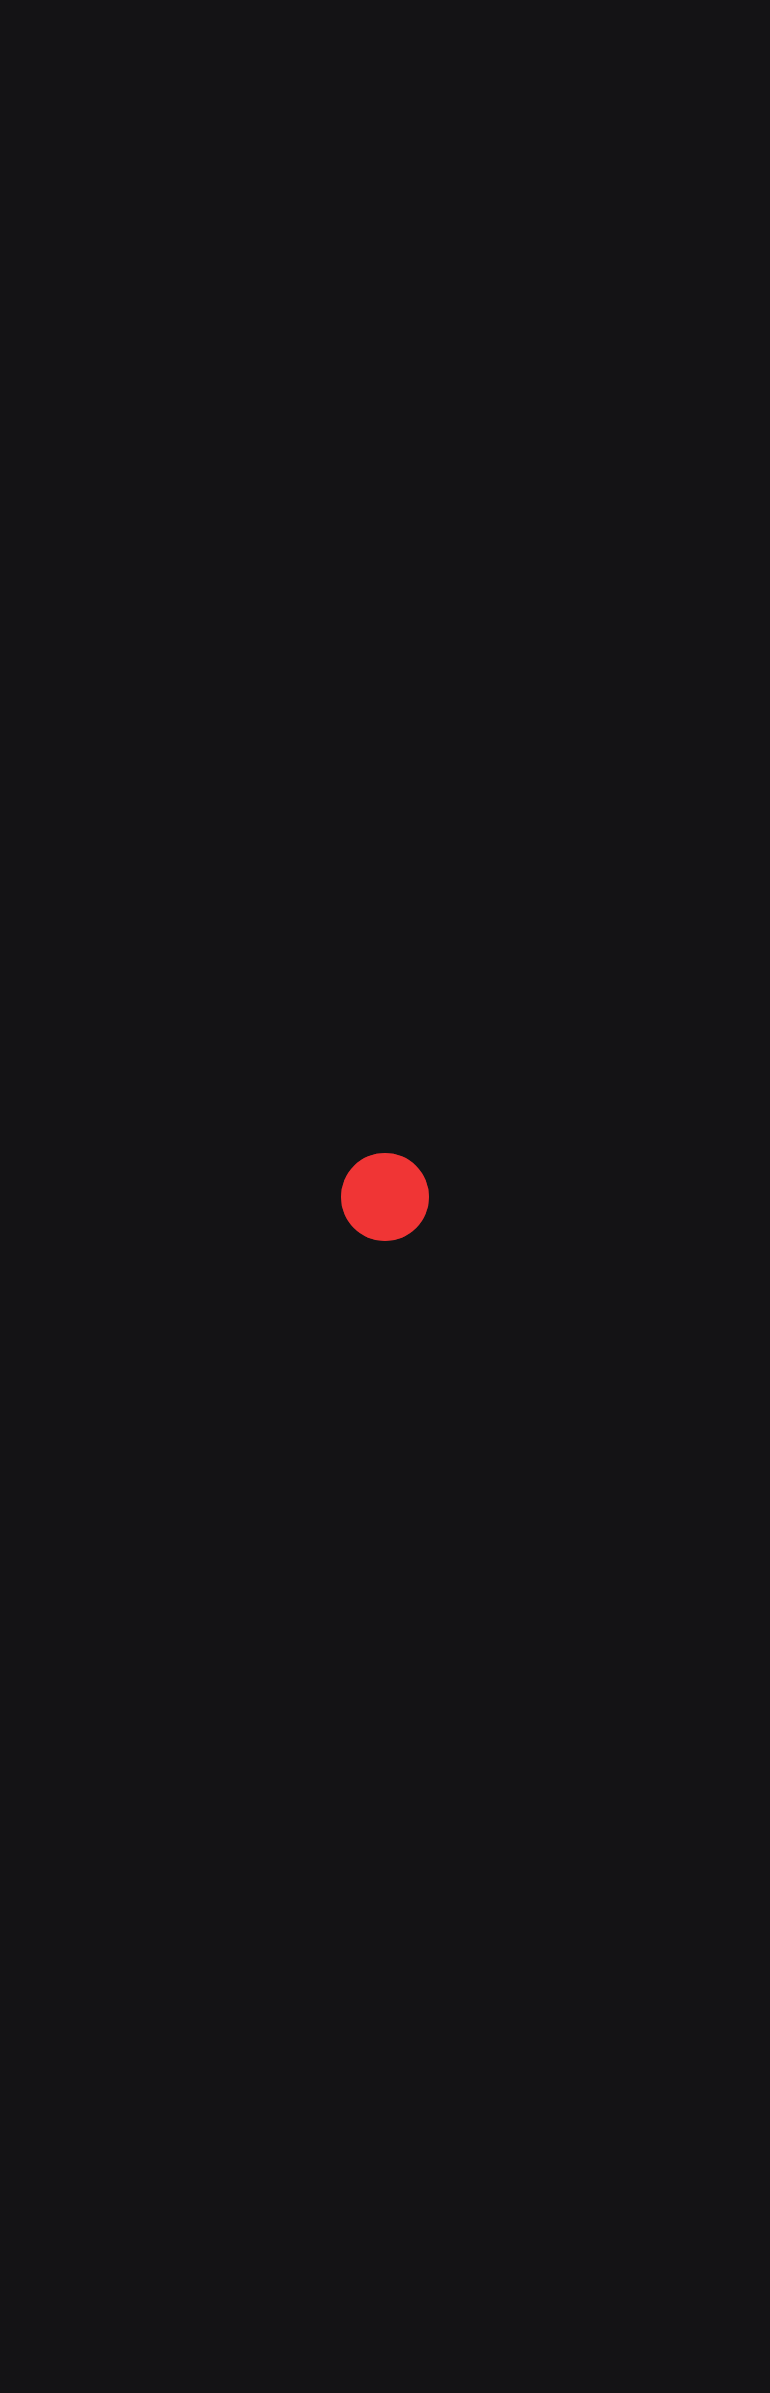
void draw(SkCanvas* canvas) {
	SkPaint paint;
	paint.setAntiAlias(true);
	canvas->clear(0xff141315);
	paint.setColor(0xffc42e2f);
	canvas->drawCircle(385, 1197, 44, paint);
	paint.setColor(0xbfff3737);
	canvas->drawCircle(385, 1197, 44, paint);
}
